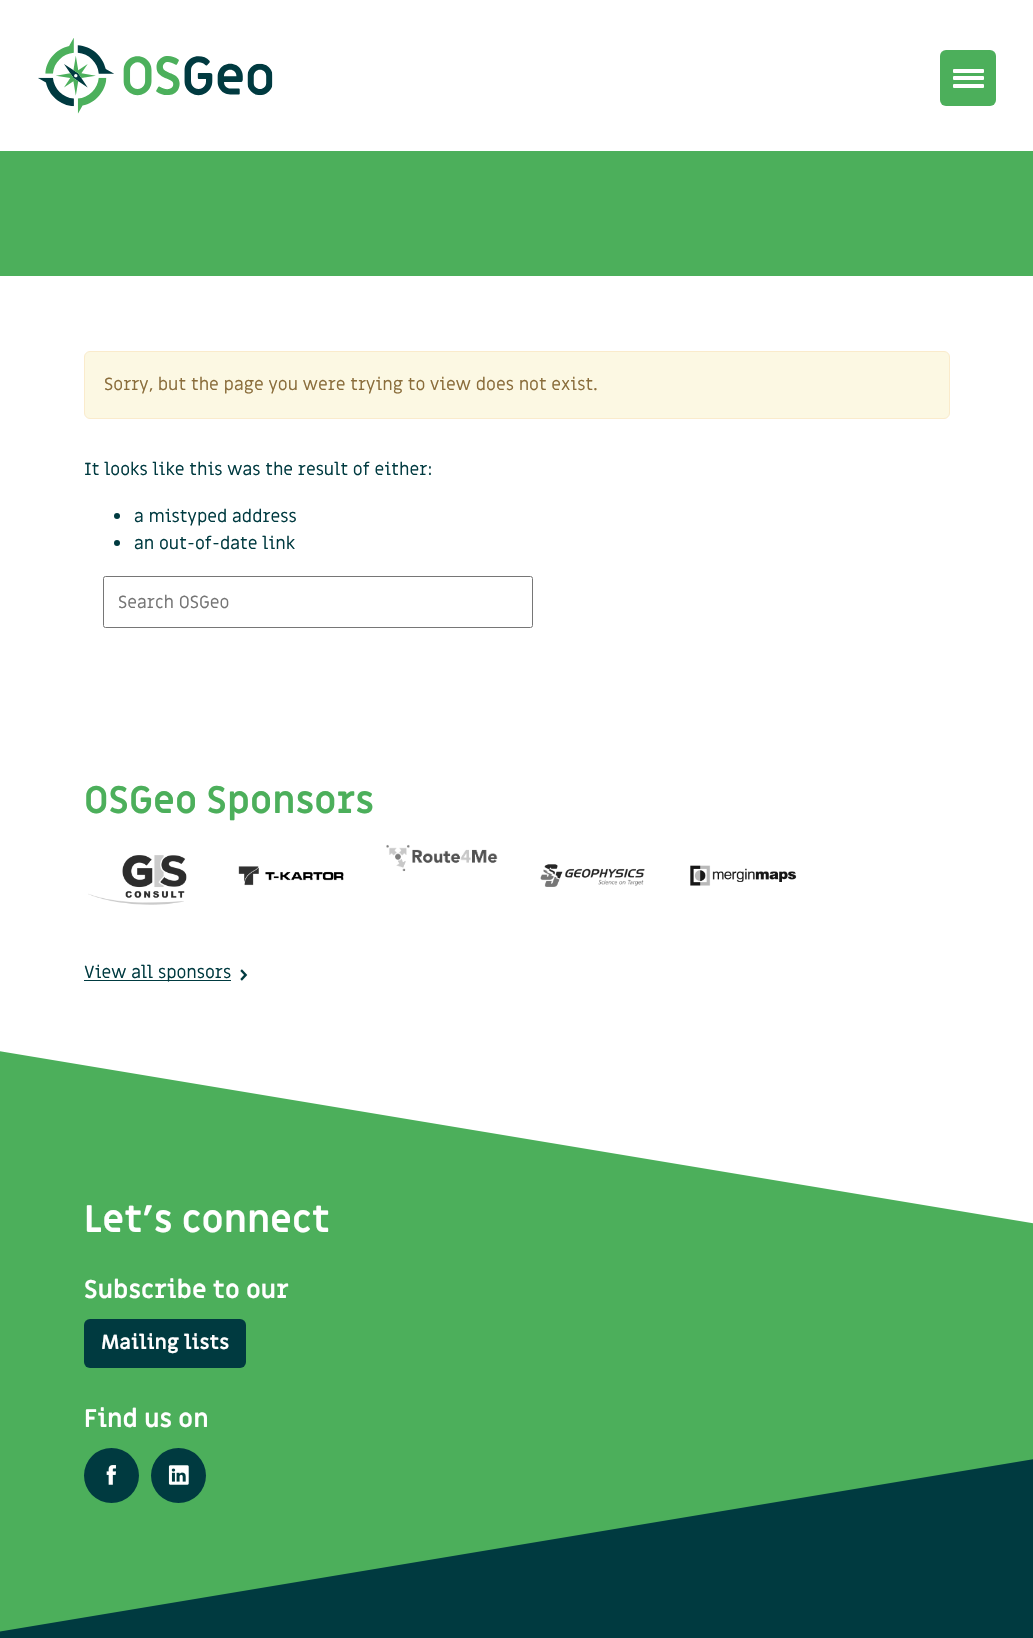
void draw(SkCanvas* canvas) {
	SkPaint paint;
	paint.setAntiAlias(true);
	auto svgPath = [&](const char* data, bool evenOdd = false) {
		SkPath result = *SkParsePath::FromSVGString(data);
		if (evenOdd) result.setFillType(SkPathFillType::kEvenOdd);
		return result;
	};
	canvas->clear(0xffffffff);
	canvas->drawImageRect(SkImages::DeferredFromEncodedData(SkData::MakeFromFileName("img1.png")), SkRect::MakeXYWH(38, 38, 235, 76), SkSamplingOptions());
	paint.setColor(0xff4caf5b);
	canvas->drawRoundRect(SkRect::MakeXYWH(940, 50, 56, 56), 6, 6, paint);
	paint.setColor(0xffffffff);
	canvas->drawRoundRect(SkRect::MakeXYWH(953, 69, 31, 4), 1, 1, paint);
	canvas->drawRoundRect(SkRect::MakeXYWH(953, 76, 31, 4), 1, 1, paint);
	canvas->drawRoundRect(SkRect::MakeXYWH(953, 84, 31, 4), 1, 1, paint);
	paint.setColor(0xff4caf5b);
	canvas->drawRect(SkRect::MakeXYWH(0, 151, 1033, 125), paint);
	paint.setColor(0xfffcf8e3);
	canvas->drawRoundRect(SkRect::MakeXYWH(84.5, 351.5, 865, 67), 5.5, 5.5, paint);
	paint.setStroke(true);
	paint.setStrokeWidth(1);
	paint.setColor(0xfffaebcc);
	canvas->drawRoundRect(SkRect::MakeXYWH(84.5, 351.5, 865, 67), 5.5, 5.5, paint);
	SkFont f1(fontMgr->matchFamilyStyle("Miriam Libre", SkFontStyle::Normal()), 17.5);
	f1.setSubpixel(true);
	paint.setStroke(false);
	paint.setColor(0xff8a6d3b);
	canvas->drawString("Sorry, but the page you were trying to view does not exist.", 104, 390, f1, paint);
	paint.setColor(0xff003a40);
	canvas->drawString("It looks like this was the result of either:", 84, 475, f1, paint);
	canvas->drawCircle(117, 516, 3, paint);
	canvas->drawString("a mistyped address", 134, 522, f1, paint);
	canvas->drawCircle(117, 543, 3, paint);
	canvas->drawString("an out-of-date link", 134, 549, f1, paint);
	paint.setStroke(true);
	paint.setColor(0xff767676);
	canvas->drawRoundRect(SkRect::MakeXYWH(103.5, 576.5, 429, 51), 2, 2, paint);
	paint.setStroke(false);
	paint.setColor(0xff757575);
	canvas->drawString("Search OSGeo", 118, 608, f1, paint);
	SkFont f2(fontMgr->matchFamilyStyle("Miriam Libre", SkFontStyle::Bold()), 37.5);
	f2.setSubpixel(true);
	paint.setColor(0xff4caf5b);
	canvas->drawString("OSGeo Sponsors", 84, 813, f2, paint);
	canvas->drawImageRect(SkImages::DeferredFromEncodedData(SkData::MakeFromFileName("img2.png")), SkRect::MakeXYWH(88, 855, 99, 50), SkSamplingOptions());
	canvas->drawImageRect(SkImages::DeferredFromEncodedData(SkData::MakeFromFileName("img3.png")), SkRect::MakeXYWH(238, 866, 106, 20), SkSamplingOptions());
	canvas->drawImageRect(SkImages::DeferredFromEncodedData(SkData::MakeFromFileName("img4.png")), SkRect::MakeXYWH(386, 844, 112, 28), SkSamplingOptions());
	canvas->drawImageRect(SkImages::DeferredFromEncodedData(SkData::MakeFromFileName("img5.png")), SkRect::MakeXYWH(540, 864, 105, 23), SkSamplingOptions());
	canvas->drawImageRect(SkImages::DeferredFromEncodedData(SkData::MakeFromFileName("img6.png")), SkRect::MakeXYWH(690, 865, 107, 21), SkSamplingOptions());
	paint.setColor(0xff003a40);
	canvas->drawRect(SkRect::MakeXYWH(84, 980, 147, 1), paint);
	canvas->drawString("View all sponsors", 84, 978, f1, paint);
	canvas->drawImageRect(SkImages::DeferredFromEncodedData(SkData::MakeFromFileName("img7.png")), SkRect::MakeXYWH(240, 969, 8, 12), SkSamplingOptions());
	canvas->drawPath(svgPath("M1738 1341L-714 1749L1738 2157Z", true), paint);
	paint.setColor(0xff4caf5b);
	canvas->drawPath(svgPath("M-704 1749V934L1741 1341Z", true), paint);
	paint.setColor(0xffffffff);
	canvas->drawString("Let's connect", 84, 1232, f2, paint);
	SkFont f3(fontMgr->matchFamilyStyle("Miriam Libre", SkFontStyle::Bold()), 25);
	f3.setSubpixel(true);
	canvas->drawString("Subscribe to our", 84, 1298, f3, paint);
	paint.setColor(0xff003a40);
	canvas->drawRoundRect(SkRect::MakeXYWH(84, 1319, 162, 49), 6, 6, paint);
	SkFont f4(fontMgr->matchFamilyStyle("Miriam Libre", SkFontStyle::Bold()), 20);
	f4.setSubpixel(true);
	paint.setColor(0xffffffff);
	canvas->drawString("Mailing lists", 101, 1349, f4, paint);
	canvas->drawString("Find us on", 84, 1427, f3, paint);
	paint.setColor(0xff003a40);
	canvas->drawCircle(111.5, 1475.5, 27.5, paint);
	canvas->drawImageRect(SkImages::DeferredFromEncodedData(SkData::MakeFromFileName("img8.png")), SkRect::MakeXYWH(106, 1465, 10, 20), SkSamplingOptions());
	canvas->drawCircle(178.5, 1475.5, 27.5, paint);
	canvas->drawImageRect(SkImages::DeferredFromEncodedData(SkData::MakeFromFileName("img9.png")), SkRect::MakeXYWH(168, 1465, 21, 20), SkSamplingOptions());
}
